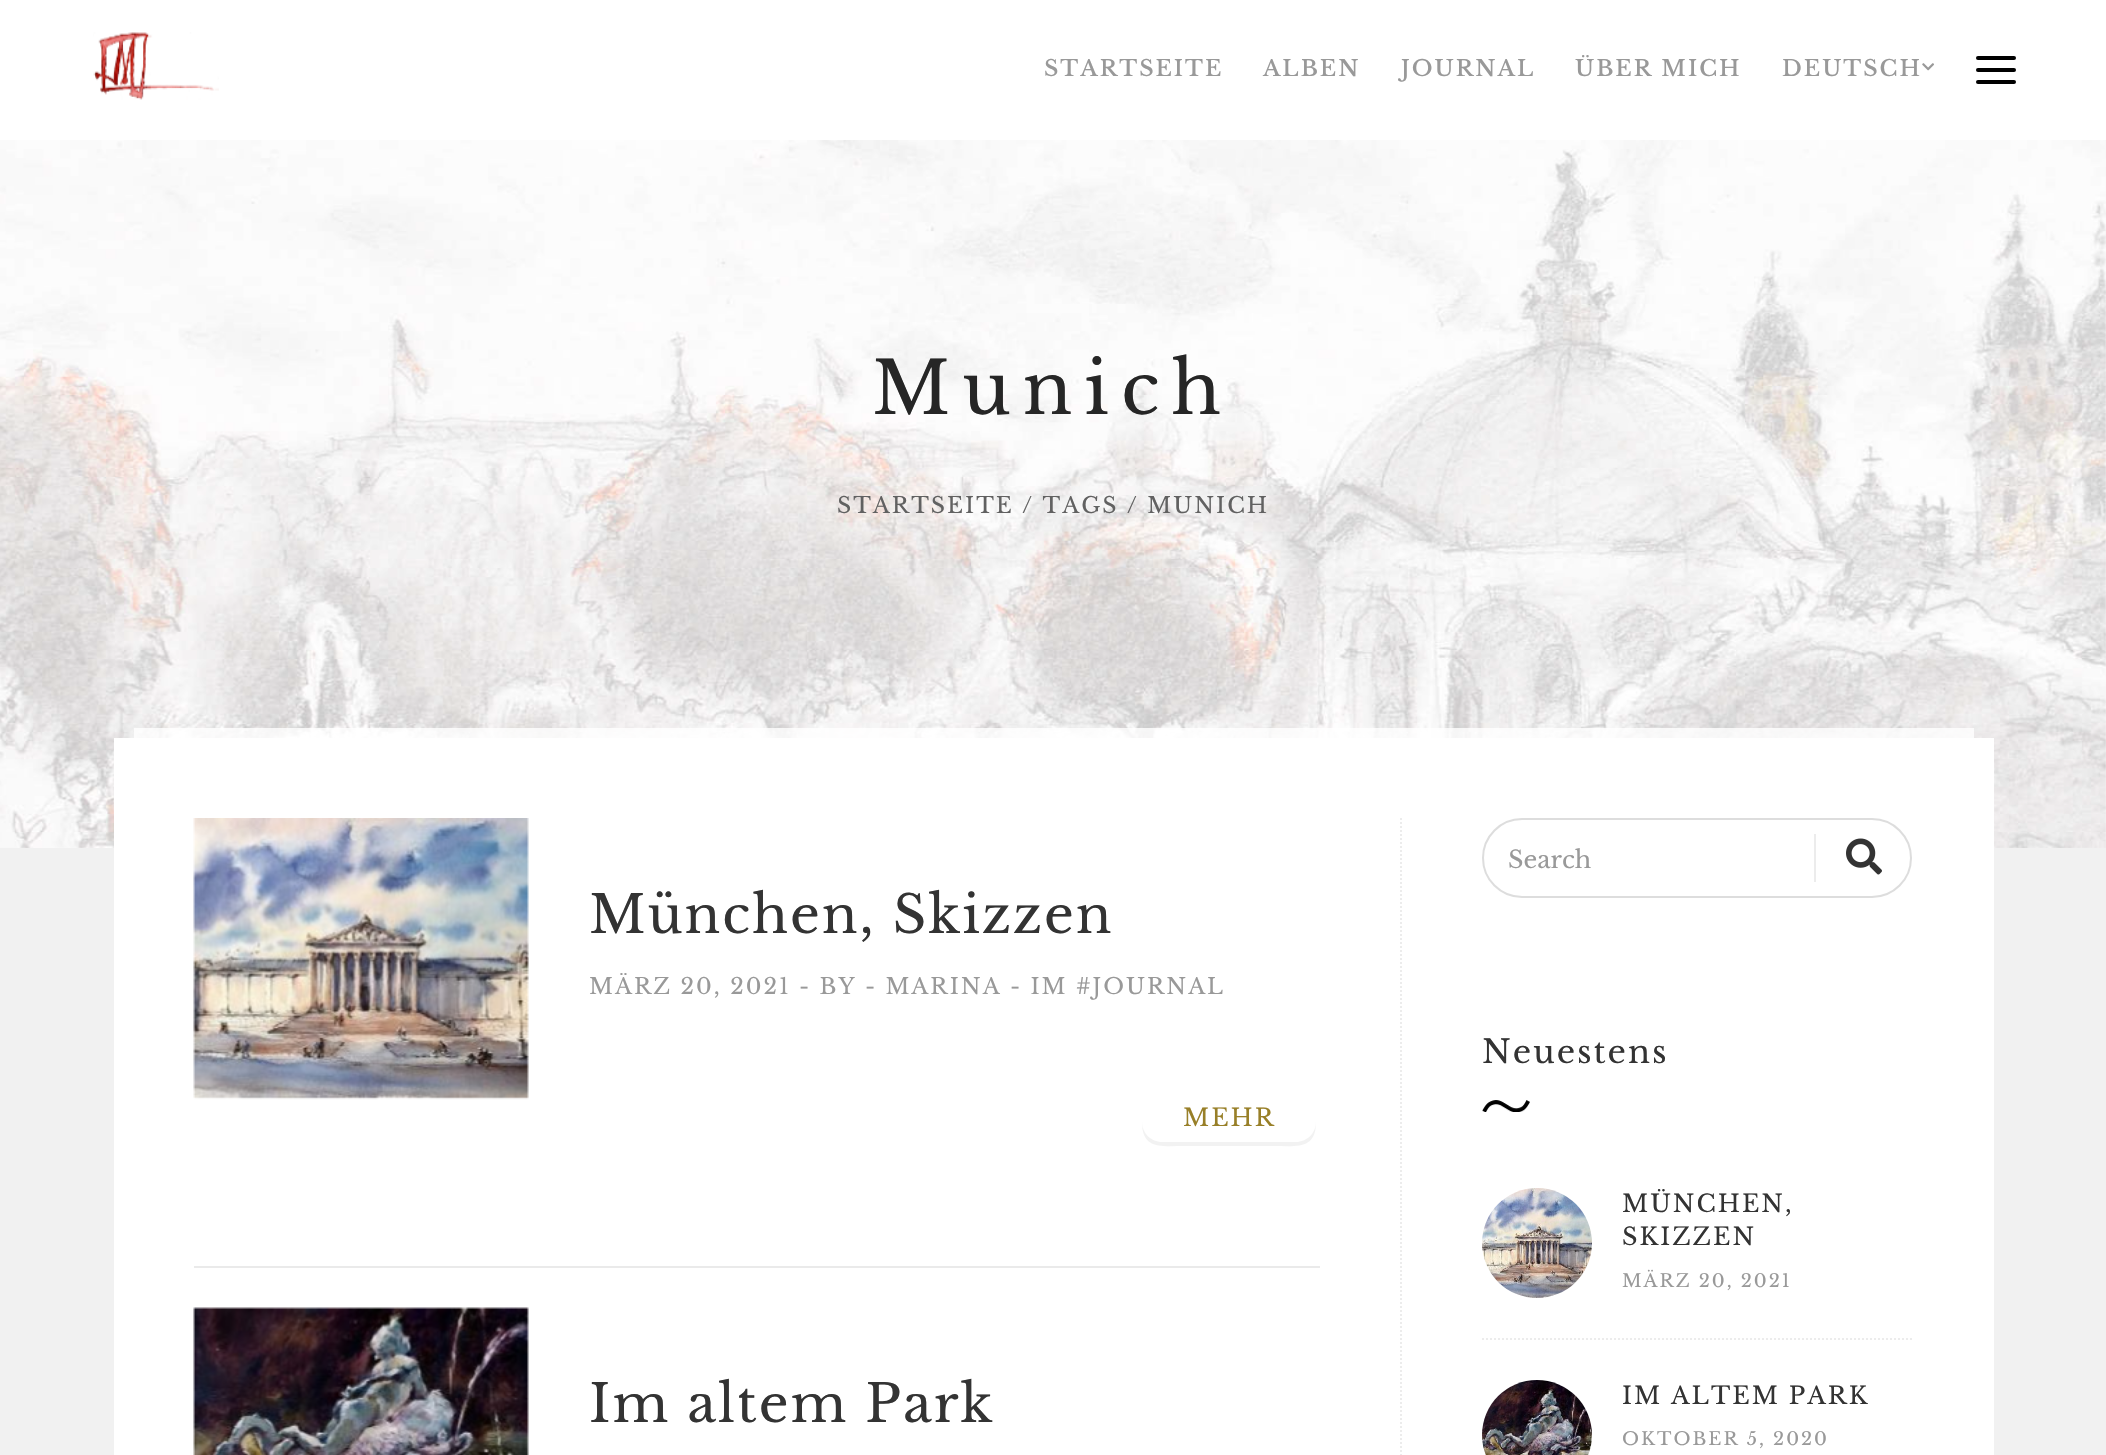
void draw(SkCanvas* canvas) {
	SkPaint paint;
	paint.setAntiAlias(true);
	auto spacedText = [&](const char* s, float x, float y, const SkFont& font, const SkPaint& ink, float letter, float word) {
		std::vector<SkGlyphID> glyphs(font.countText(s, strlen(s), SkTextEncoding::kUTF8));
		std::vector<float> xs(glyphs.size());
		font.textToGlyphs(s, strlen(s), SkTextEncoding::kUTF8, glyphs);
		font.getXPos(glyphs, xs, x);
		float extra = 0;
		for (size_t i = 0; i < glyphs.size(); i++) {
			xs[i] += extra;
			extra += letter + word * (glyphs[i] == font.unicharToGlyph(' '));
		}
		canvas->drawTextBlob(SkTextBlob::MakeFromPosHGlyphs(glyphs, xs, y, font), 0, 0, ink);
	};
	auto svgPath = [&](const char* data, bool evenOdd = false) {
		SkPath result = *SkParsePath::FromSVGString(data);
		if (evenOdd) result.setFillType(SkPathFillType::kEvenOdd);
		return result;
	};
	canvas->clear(0xfff1f1f1);
	paint.setColor(0xffffffff);
	canvas->drawRect(SkRect::MakeXYWH(0, 0, 2106, 140), paint);
	canvas->drawImageRect(SkImages::DeferredFromEncodedData(SkData::MakeFromFileName("img1.png")), SkRect::MakeXYWH(93, 32, 126, 68), SkSamplingOptions());
	SkFont f1(fontMgr->matchFamilyStyle("Libre Baskerville", SkFontStyle(500, SkFontStyle::kNormal_Width, SkFontStyle::kUpright_Slant)), 22);
	f1.setSubpixel(true);
	paint.setColor(0xff999999);
	spacedText("STARTSEITE", 1044, 76, f1, paint, 2, 0);
	spacedText("ALBEN", 1263, 76, f1, paint, 2, 0);
	spacedText("JOURNAL", 1401, 76, f1, paint, 2, 0);
	spacedText("ÜBER MICH", 1575, 76, f1, paint, 2, 0);
	spacedText("DEUTSCH", 1782, 76, f1, paint, 2, 0);
	canvas->drawImageRect(SkImages::DeferredFromEncodedData(SkData::MakeFromFileName("img2.png")), SkRect::MakeXYWH(1922, 63, 12, 8), SkSamplingOptions());
	paint.setColor(0xff000000);
	canvas->drawRoundRect(SkRect::MakeXYWH(1976, 68, 40, 4), 2, 2, paint);
	canvas->drawRoundRect(SkRect::MakeXYWH(1976, 56, 40, 4), 2, 2, paint);
	canvas->drawRoundRect(SkRect::MakeXYWH(1976, 80, 40, 4), 2, 2, paint);
	canvas->drawImageRect(SkImages::DeferredFromEncodedData(SkData::MakeFromFileName("img3.png")), SkRect::MakeXYWH(0, 140, 2106, 708), SkSamplingOptions());
	SkFont f2(fontMgr->matchFamilyStyle("Libre Baskerville", SkFontStyle::Normal()), 72);
	f2.setSubpixel(true);
	paint.setColor(0xff262626);
	spacedText("Munich", 872, 414, f2, paint, 12, 0);
	SkFont f3(fontMgr->matchFamilyStyle("Libre Baskerville", SkFontStyle::Normal()), 22);
	f3.setSubpixel(true);
	paint.setColor(0xff616161);
	spacedText("STARTSEITE / TAGS / MUNICH", 837, 513, f3, paint, 2, 0);
	paint.setColor(0xffffffff);
	canvas->drawRect(SkRect::MakeXYWH(114, 738, 1880, 717), paint);
	paint.setColor(0xccffffff);
	canvas->drawRect(SkRect::MakeXYWH(134, 728, 1840, 10), paint);
	canvas->drawImageRect(SkImages::DeferredFromEncodedData(SkData::MakeFromFileName("img4.png")), SkRect::MakeXYWH(193, 818, 336, 282), SkSamplingOptions());
	SkFont f4(fontMgr->matchFamilyStyle("Libre Baskerville", SkFontStyle::Normal()), 52);
	f4.setSubpixel(true);
	paint.setColor(0xff333333);
	spacedText("München, Skizzen", 589, 933, f4, paint, 2, 0);
	paint.setColor(0xff999999);
	spacedText("MÄRZ 20, 2021 - BY - MARINA - IM #JOURNAL", 589, 994, f3, paint, 2, 0);
	paint.setColor(0xfff2f2f2);
	canvas->drawPath(svgPath("M1142 1122C1142 1150 1162 1146 1184 1146H1274C1296 1146 1316 1150 1316 1122C1316 1133 1307 1142 1296 1142H1162C1151 1142 1142 1133 1142 1122Z"), paint);
	SkFont f5(fontMgr->matchFamilyStyle("Libre Baskerville", SkFontStyle::Normal()), 24);
	f5.setSubpixel(true);
	paint.setColor(0xff987f28);
	spacedText("MEHR", 1183, 1126, f5, paint, 2, 0);
	paint.setColor(0xffeaeaea);
	canvas->drawRect(SkRect::MakeXYWH(194, 1266, 1126, 2), paint);
	canvas->drawImageRect(SkImages::DeferredFromEncodedData(SkData::MakeFromFileName("img5.png")), SkRect::MakeXYWH(193, 1307, 336, 148), SkSamplingOptions());
	paint.setColor(0xff333333);
	spacedText("Im altem Park", 589, 1422, f4, paint, 2, 0);
	paint.setStroke(true);
	paint.setStrokeWidth(2);
	paint.setColor(0xffececec);
	paint.setPathEffect(SkDashPathEffect::Make({{2, 2}}, 0));
	canvas->drawPath(svgPath("M1401 818V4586"), paint);
	paint.setPathEffect(nullptr);
	paint.setColor(0xffdddddd);
	canvas->drawRoundRect(SkRect::MakeXYWH(1483, 819, 428, 78), 39, 39, paint);
	paint.setStroke(false);
	paint.setColor(0xff999999);
	canvas->drawString("Search", 1508, 868, f5, paint);
	paint.setColor(0xffececec);
	canvas->drawRect(SkRect::MakeXYWH(1814, 834, 2, 48), paint);
	canvas->drawImageRect(SkImages::DeferredFromEncodedData(SkData::MakeFromFileName("img6.png")), SkRect::MakeXYWH(1846, 838, 36, 37), SkSamplingOptions());
	SkFont f6(fontMgr->matchFamilyStyle("Libre Baskerville", SkFontStyle::Normal()), 32);
	f6.setSubpixel(true);
	paint.setColor(0xff333333);
	spacedText("Neuestens", 1482, 1063, f6, paint, 2, 0);
	canvas->drawImageRect(SkImages::DeferredFromEncodedData(SkData::MakeFromFileName("img7.png")), SkRect::MakeXYWH(1482, 1100, 48, 12), SkSamplingOptions());
	paint.setStroke(true);
	paint.setColor(0xffececec);
	paint.setPathEffect(SkDashPathEffect::Make({{2, 2}}, 0));
	canvas->drawPath(svgPath("M1482 1339H1912"), paint);
	paint.setPathEffect(nullptr);
	canvas->drawImageRect(SkImages::DeferredFromEncodedData(SkData::MakeFromFileName("img8.png")), SkRect::MakeXYWH(1482, 1188, 110, 110), SkSamplingOptions());
	paint.setStroke(false);
	paint.setColor(0xff333333);
	spacedText("MÜNCHEN,", 1622, 1212, f5, paint, 2, 0);
	spacedText("SKIZZEN", 1622, 1245, f5, paint, 2, 0);
	SkFont f7(fontMgr->matchFamilyStyle("Libre Baskerville", SkFontStyle::Normal()), 18);
	f7.setSubpixel(true);
	paint.setColor(0xff999999);
	spacedText("MÄRZ 20, 2021", 1622, 1287, f7, paint, 2, 0);
	canvas->drawImageRect(SkImages::DeferredFromEncodedData(SkData::MakeFromFileName("img9.png")), SkRect::MakeXYWH(1482, 1380, 110, 75), SkSamplingOptions());
	paint.setColor(0xff333333);
	spacedText("IM ALTEM PARK", 1622, 1404, f5, paint, 2, 0);
	paint.setColor(0xff999999);
	spacedText("OKTOBER 5, 2020", 1622, 1445, f7, paint, 2, 0);
}
